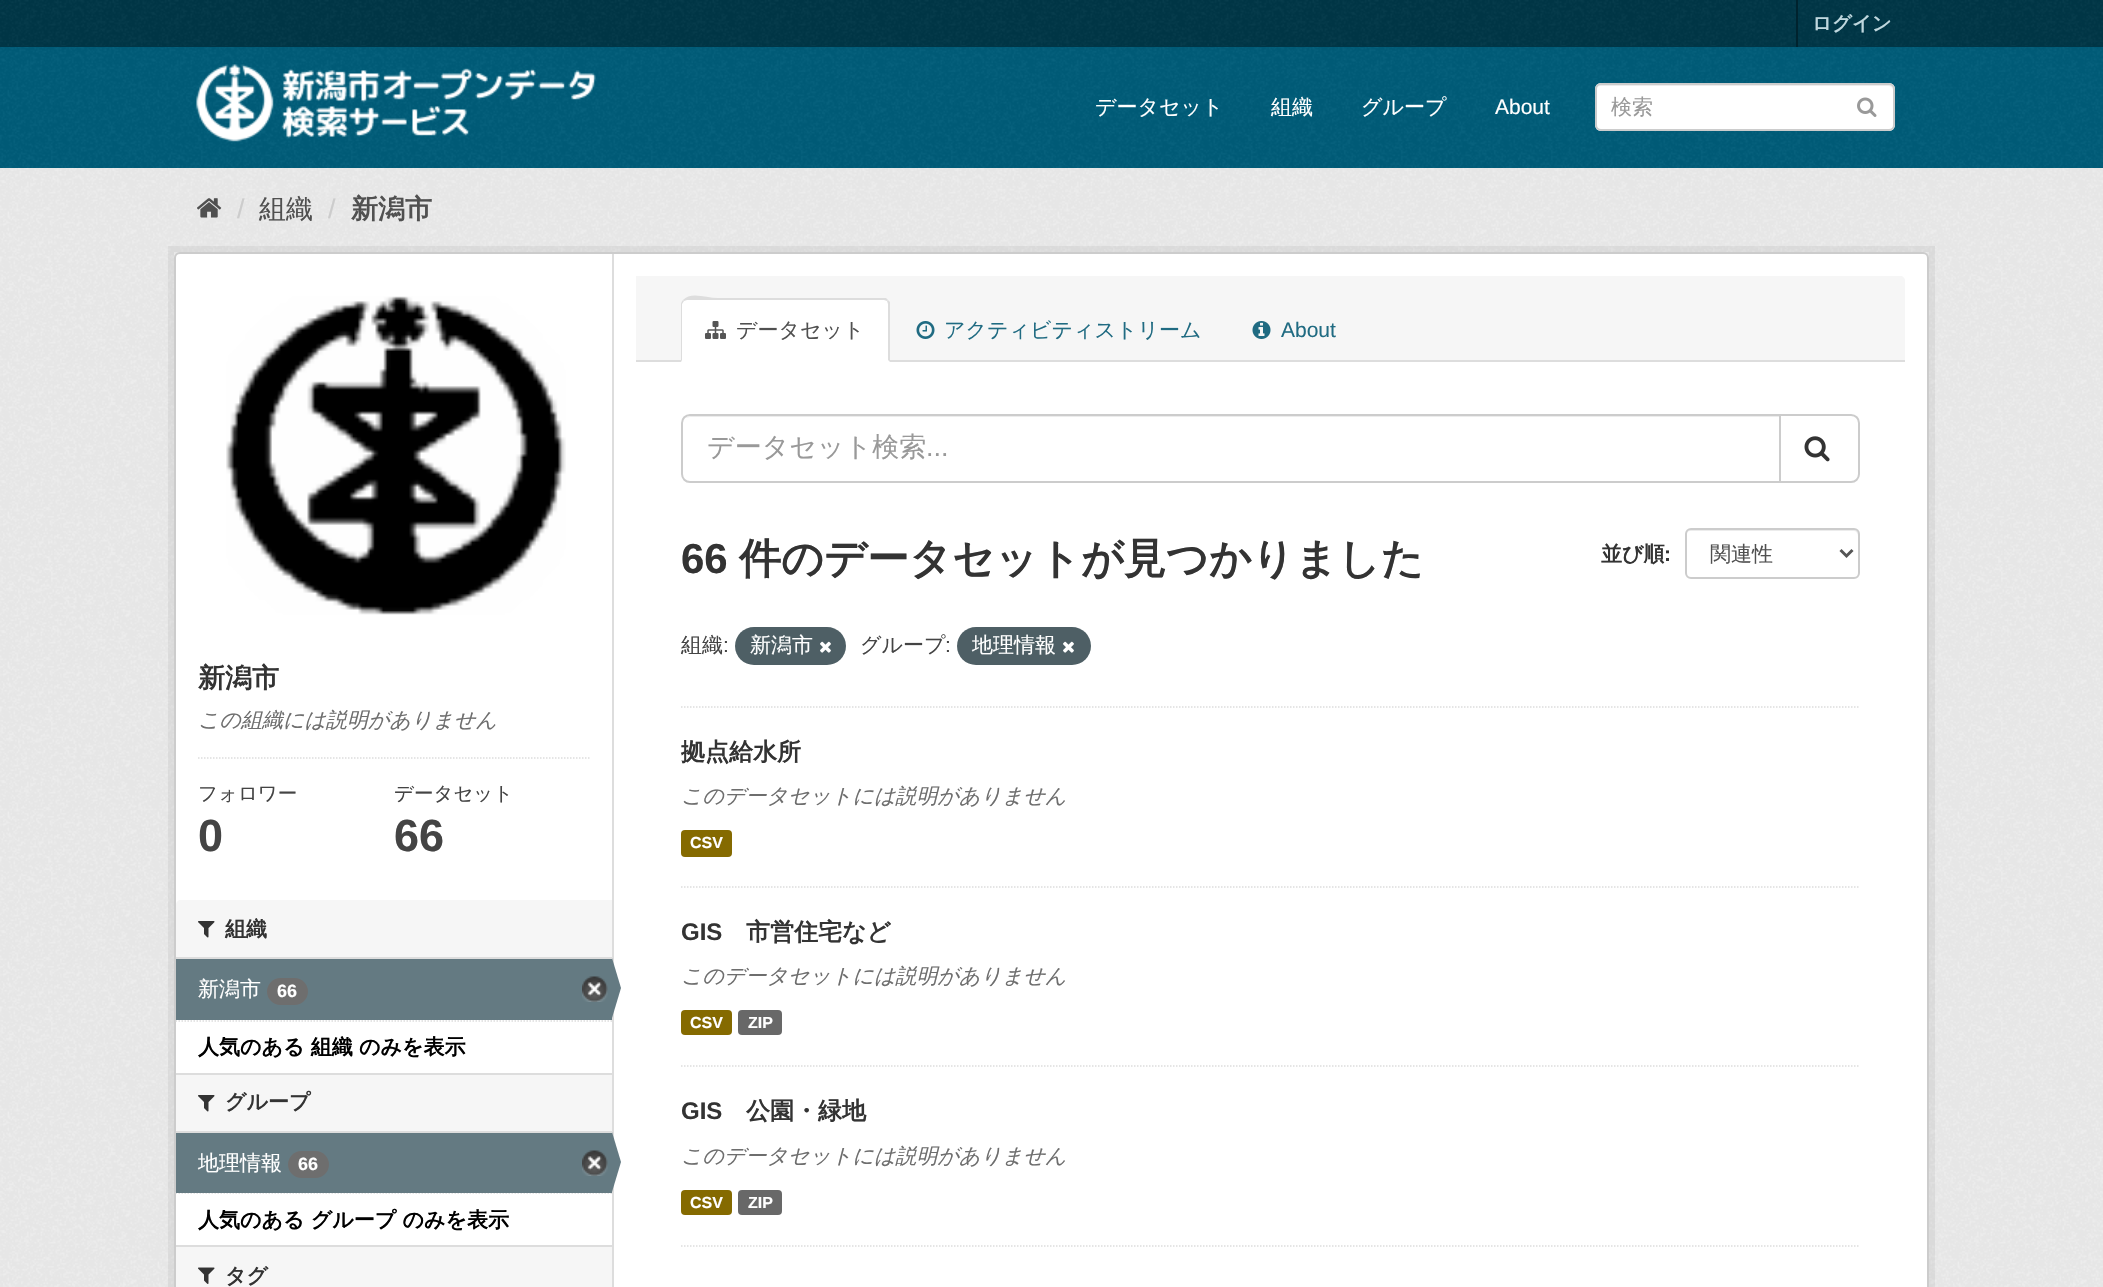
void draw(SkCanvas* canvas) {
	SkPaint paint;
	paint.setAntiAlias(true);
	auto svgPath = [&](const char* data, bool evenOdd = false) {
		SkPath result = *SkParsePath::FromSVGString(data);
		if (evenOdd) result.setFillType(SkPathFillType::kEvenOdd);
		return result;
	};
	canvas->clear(0xff003647);
	canvas->drawImageRect(SkImages::DeferredFromEncodedData(SkData::MakeFromFileName("img1.png")), SkRect::MakeXYWH(0, 0, 2103, 46), SkSamplingOptions());
	paint.setColor(0xff00232e);
	canvas->drawRect(SkRect::MakeXYWH(1796, 0, 2, 47), paint);
	SkFont f1(fontMgr->matchFamilyStyle("WenQuanYi Zen Hei", SkFontStyle::Bold()), 19.5);
	f1.setSubpixel(true);
	paint.setColor(0xffbfd7de);
	canvas->drawString("ログイン", 1812, 30, f1, paint);
	paint.setColor(0xff005d7a);
	canvas->drawRect(SkRect::MakeXYWH(0, 47, 2103, 121), paint);
	canvas->drawImageRect(SkImages::DeferredFromEncodedData(SkData::MakeFromFileName("img2.png")), SkRect::MakeXYWH(0, 47, 2103, 121), SkSamplingOptions());
	canvas->drawImageRect(SkImages::DeferredFromEncodedData(SkData::MakeFromFileName("img3.png")), SkRect::MakeXYWH(196, 64, 400, 78), SkSamplingOptions());
	SkFont f2(fontMgr->matchFamilyStyle("WenQuanYi Zen Hei", SkFontStyle(500, SkFontStyle::kNormal_Width, SkFontStyle::kUpright_Slant)), 21);
	f2.setSubpixel(true);
	paint.setColor(0xffffffff);
	canvas->drawString("データセット", 1095, 114, f2, paint);
	canvas->drawString("組織", 1271, 114, f2, paint);
	canvas->drawString("グループ", 1361, 114, f2, paint);
	SkFont f3(fontMgr->matchFamilyStyle("Liberation Sans", SkFontStyle::Normal()), 21);
	f3.setSubpixel(true);
	canvas->drawString("About", 1495, 114, f3, paint);
	canvas->drawRoundRect(SkRect::MakeXYWH(1595, 83, 300, 48), 6, 6, paint);
	paint.setColor(0xffececec);
	canvas->drawPath(svgPath("M1600 86H1888C1891 86 1893 88 1893 90V89C1893 86 1891 84 1888 84H1601C1598 84 1596 86 1596 89V90C1596 88 1598 86 1600 86Z"), paint);
	paint.setStroke(true);
	paint.setStrokeWidth(2);
	paint.setColor(0xffcccccc);
	canvas->drawRoundRect(SkRect::MakeXYWH(1596, 84, 298, 46), 5, 5, paint);
	paint.setStroke(false);
	paint.setColor(0xff999999);
	canvas->drawString("検索", 1611, 114, f2, paint);
	canvas->drawImageRect(SkImages::DeferredFromEncodedData(SkData::MakeFromFileName("img4.png")), SkRect::MakeXYWH(1857, 97, 20, 20), SkSamplingOptions());
	paint.setColor(0xffeeeeee);
	canvas->drawRect(SkRect::MakeXYWH(0, 168, 2103, 1119), paint);
	canvas->drawImageRect(SkImages::DeferredFromEncodedData(SkData::MakeFromFileName("img5.png")), SkRect::MakeXYWH(0, 168, 2103, 1119), SkSamplingOptions());
	canvas->drawImageRect(SkImages::DeferredFromEncodedData(SkData::MakeFromFileName("img6.png")), SkRect::MakeXYWH(197, 198, 25, 20), SkSamplingOptions());
	SkFont f4(fontMgr->matchFamilyStyle("Liberation Sans", SkFontStyle::Normal()), 27);
	f4.setSubpixel(true);
	paint.setColor(0xffcccccc);
	canvas->drawString("/", 237, 218, f4, paint);
	SkFont f5(fontMgr->matchFamilyStyle("WenQuanYi Zen Hei", SkFontStyle(500, SkFontStyle::kNormal_Width, SkFontStyle::kUpright_Slant)), 27);
	f5.setSubpixel(true);
	paint.setColor(0xff505050);
	canvas->drawString("組織", 259, 218, f5, paint);
	paint.setColor(0xffcccccc);
	canvas->drawString("/", 328, 218, f4, paint);
	SkFont f6(fontMgr->matchFamilyStyle("WenQuanYi Zen Hei", SkFontStyle::Bold()), 27);
	f6.setSubpixel(true);
	paint.setColor(0xff505050);
	canvas->drawString("新潟市", 351, 218, f6, paint);
	paint.setStroke(true);
	paint.setStrokeWidth(6);
	paint.setColor(0x0d000000);
	canvas->drawRect(SkRect::MakeXYWH(171, 249, 1761, 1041), paint);
	paint.setStroke(false);
	paint.setColor(0xffffffff);
	canvas->drawRoundRect(SkRect::MakeXYWH(175, 253, 1753, 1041), 5, 5, paint);
	paint.setStroke(true);
	paint.setStrokeWidth(2);
	paint.setColor(0xffcccccc);
	canvas->drawRoundRect(SkRect::MakeXYWH(175, 253, 1753, 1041), 5, 5, paint);
	canvas->drawImageRect(SkImages::DeferredFromEncodedData(SkData::MakeFromFileName("img7.png")), SkRect::MakeXYWH(226, 296, 340, 319), SkSamplingOptions());
	paint.setStroke(false);
	paint.setColor(0xff333333);
	canvas->drawString("新潟市", 198, 687, f6, paint);
	SkFont f7(fontMgr->matchFamilyStyle("WenQuanYi Zen Hei", SkFontStyle(500, SkFontStyle::kNormal_Width, SkFontStyle::kItalic_Slant)), 21);
	f7.setSubpixel(true);
	paint.setColor(0xff6e6e6e);
	canvas->drawString("この組織には説明がありません", 198, 727, f7, paint);
	paint.setStroke(true);
	paint.setStrokeWidth(1.5);
	paint.setColor(0xffdddddd);
	paint.setPathEffect(SkDashPathEffect::Make({{1.5f, 1.5f}}, 0));
	canvas->drawPath(svgPath("M198 758H589.5"), paint);
	paint.setPathEffect(nullptr);
	SkFont f8(fontMgr->matchFamilyStyle("WenQuanYi Zen Hei", SkFontStyle(500, SkFontStyle::kNormal_Width, SkFontStyle::kUpright_Slant)), 19.5);
	f8.setSubpixel(true);
	paint.setStroke(false);
	paint.setColor(0xff444444);
	canvas->drawString("フォロワー", 198, 800, f8, paint);
	SkFont f9(fontMgr->matchFamilyStyle("Liberation Sans", SkFontStyle::Bold()), 45);
	f9.setSubpixel(true);
	canvas->drawString("0", 198, 851, f9, paint);
	canvas->drawString("データセット", 394, 800, f8, paint);
	canvas->drawString("66", 394, 851, f9, paint);
	paint.setColor(0xfff6f6f6);
	canvas->drawPath(svgPath("M181 900H612V959H176V905C176 902 178 900 181 900Z"), paint);
	paint.setColor(0xffdddddd);
	canvas->drawRect(SkRect::MakeXYWH(176, 957, 436, 2), paint);
	canvas->drawImageRect(SkImages::DeferredFromEncodedData(SkData::MakeFromFileName("img8.png")), SkRect::MakeXYWH(198, 921, 17, 17), SkSamplingOptions());
	SkFont f10(fontMgr->matchFamilyStyle("WenQuanYi Zen Hei", SkFontStyle::Bold()), 21);
	f10.setSubpixel(true);
	paint.setColor(0xff333333);
	canvas->drawString("組織", 225, 936, f10, paint);
	paint.setColor(0xff647a82);
	canvas->drawRect(SkRect::MakeXYWH(176, 959, 436, 61), paint);
	paint.setColor(0xffffffff);
	canvas->drawString("新潟市", 198, 996, f2, paint);
	paint.setColor(0xff6e6e6e);
	canvas->drawRoundRect(SkRect::MakeXYWH(267, 978, 41, 27), 13.5, 13.5, paint);
	SkFont f11(fontMgr->matchFamilyStyle("Liberation Sans", SkFontStyle::Bold()), 18);
	f11.setSubpixel(true);
	paint.setColor(0xffffffff);
	canvas->drawString("66", 277, 997, f11, paint);
	canvas->drawImageRect(SkImages::DeferredFromEncodedData(SkData::MakeFromFileName("img9.png")), SkRect::MakeXYWH(582, 976, 26, 26), SkSamplingOptions());
	paint.setColor(0xffdddddd);
	canvas->drawRect(SkRect::MakeXYWH(612, 254, 2, 1033), paint);
	paint.setColor(0xff647a82);
	canvas->drawPath(svgPath("M612 1018V958L621 988Z"), paint);
	paint.setStroke(true);
	paint.setColor(0xffdddddd);
	paint.setPathEffect(SkDashPathEffect::Make({{1.5f, 1.5f}}, 0));
	canvas->drawPath(svgPath("M175.5 1021H612"), paint);
	paint.setPathEffect(nullptr);
	paint.setStroke(false);
	paint.setColor(0xff000000);
	canvas->drawString("人気のある 組織 のみを表示", 198, 1054, f10, paint);
	paint.setColor(0xfff6f6f6);
	canvas->drawRect(SkRect::MakeXYWH(176, 1075, 436, 56), paint);
	paint.setColor(0xffdddddd);
	canvas->drawRect(SkRect::MakeXYWH(176, 1073, 436, 2), paint);
	canvas->drawRect(SkRect::MakeXYWH(176, 1131, 436, 2), paint);
	canvas->drawImageRect(SkImages::DeferredFromEncodedData(SkData::MakeFromFileName("img8.png")), SkRect::MakeXYWH(198, 1095, 17, 17), SkSamplingOptions());
	paint.setColor(0xff333333);
	canvas->drawString("グループ", 225, 1109, f10, paint);
	paint.setStroke(true);
	paint.setColor(0xffdddddd);
	paint.setPathEffect(SkDashPathEffect::Make({{1.5f, 1.5f}}, 0));
	canvas->drawPath(svgPath("M175.5 1193H612"), paint);
	paint.setPathEffect(nullptr);
	paint.setStroke(false);
	paint.setColor(0xff647a82);
	canvas->drawRect(SkRect::MakeXYWH(176, 1133, 436, 60), paint);
	paint.setColor(0xffffffff);
	canvas->drawString("地理情報", 198, 1170, f2, paint);
	paint.setColor(0xff6e6e6e);
	canvas->drawRoundRect(SkRect::MakeXYWH(288, 1151, 41, 27), 13.5, 13.5, paint);
	paint.setColor(0xffffffff);
	canvas->drawString("66", 298, 1170, f11, paint);
	canvas->drawImageRect(SkImages::DeferredFromEncodedData(SkData::MakeFromFileName("img9.png")), SkRect::MakeXYWH(582, 1150, 26, 26), SkSamplingOptions());
	paint.setColor(0xff647a82);
	canvas->drawPath(svgPath("M612 1192V1132L621 1162Z"), paint);
	paint.setColor(0xff000000);
	canvas->drawString("人気のある グループ のみを表示", 198, 1227, f10, paint);
	paint.setColor(0xfff6f6f6);
	canvas->drawRect(SkRect::MakeXYWH(176, 1247, 436, 40), paint);
	paint.setColor(0xffdddddd);
	canvas->drawRect(SkRect::MakeXYWH(176, 1245, 436, 2), paint);
	canvas->drawImageRect(SkImages::DeferredFromEncodedData(SkData::MakeFromFileName("img10.png")), SkRect::MakeXYWH(198, 1267, 17, 17), SkSamplingOptions());
	paint.setColor(0xff333333);
	canvas->drawString("タグ", 225, 1283, f10, paint);
	paint.setColor(0xfff6f6f6);
	canvas->drawPath(svgPath("M636 276H1900C1903 276 1905 278 1905 281V362H636Z"), paint);
	paint.setColor(0xffdddddd);
	canvas->drawRect(SkRect::MakeXYWH(636, 360, 1269, 2), paint);
	paint.setColor(0xffffffff);
	canvas->drawPath(svgPath("M687 299H884C887.5 299 890 301.5 890 305V362H681V305C681 301.5 683.5 299 687 299Z"), paint);
	paint.setColor(0xffdddddd);
	canvas->drawPath(svgPath("M687 300L684 301L683 300C691 291 706 298 718 298H886L888 300L887 301L884 300Z"), paint);
	canvas->drawPath(svgPath("M888 300L890 302V362L888 360V304L887 301Z"), paint);
	canvas->drawPath(svgPath("M681 362L682 360V304L684 301L683 300C682 301 681 303 681 304Z"), paint);
	canvas->drawImageRect(SkImages::DeferredFromEncodedData(SkData::MakeFromFileName("img11.png")), SkRect::MakeXYWH(705, 321, 21, 18), SkSamplingOptions());
	paint.setColor(0xff505050);
	canvas->drawString("データセット", 736, 337, f2, paint);
	canvas->drawImageRect(SkImages::DeferredFromEncodedData(SkData::MakeFromFileName("img12.png")), SkRect::MakeXYWH(916, 321, 19, 18), SkSamplingOptions());
	paint.setColor(0xff206b82);
	canvas->drawString("アクティビティストリーム", 944, 337, f2, paint);
	canvas->drawImageRect(SkImages::DeferredFromEncodedData(SkData::MakeFromFileName("img13.png")), SkRect::MakeXYWH(1252, 321, 19, 18), SkSamplingOptions());
	canvas->drawString("About", 1281, 337, f3, paint);
	paint.setStroke(true);
	paint.setColor(0xffdddddd);
	paint.setPathEffect(SkDashPathEffect::Make({{1.5f, 1.5f}}, 0));
	canvas->drawPath(svgPath("M681 707H1860"), paint);
	paint.setPathEffect(nullptr);
	paint.setStroke(false);
	paint.setColor(0xffececec);
	canvas->drawPath(svgPath("M690 417H1779V416H691C689 416 687 417 685 418C687 418 688 417 690 417Z"), paint);
	paint.setStroke(true);
	paint.setStrokeWidth(2);
	paint.setColor(0xffcccccc);
	canvas->drawPath(svgPath("M690 415H1780V482H690C685.5 482 682 478.5 682 474V423C682 418.5 685.5 415 690 415Z"), paint);
	paint.setStroke(false);
	paint.setColor(0xff999999);
	canvas->drawString("データセット検索", 707, 456, f5, paint);
	canvas->drawString("...", 926, 456, f4, paint);
	paint.setColor(0xffffffff);
	canvas->drawPath(svgPath("M1780 415H1851C1855.5 415 1859 418.5 1859 423V474C1859 478.5 1855.5 482 1851 482H1780Z"), paint);
	paint.setStroke(true);
	paint.setColor(0xffcccccc);
	canvas->drawPath(svgPath("M1780 415H1851C1855.5 415 1859 418.5 1859 423V474C1859 478.5 1855.5 482 1851 482H1780Z"), paint);
	canvas->drawImageRect(SkImages::DeferredFromEncodedData(SkData::MakeFromFileName("img14.png")), SkRect::MakeXYWH(1804, 436, 26, 26), SkSamplingOptions());
	SkFont f12(fontMgr->matchFamilyStyle("Liberation Sans", SkFontStyle::Bold()), 42);
	f12.setSubpixel(true);
	paint.setStroke(false);
	paint.setColor(0xff333333);
	canvas->drawString("66", 681, 573, f12, paint);
	SkFont f13(fontMgr->matchFamilyStyle("WenQuanYi Zen Hei", SkFontStyle::Bold()), 42);
	f13.setSubpixel(true);
	canvas->drawString("件のデータセットが見つかりました", 739, 573, f13, paint);
	canvas->drawString("並び順", 1601, 561, f10, paint);
	SkFont f14(fontMgr->matchFamilyStyle("Liberation Sans", SkFontStyle::Bold()), 21);
	f14.setSubpixel(true);
	canvas->drawString(":", 1664, 561, f14, paint);
	paint.setColor(0xffececec);
	canvas->drawPath(svgPath("M1690 531H1854C1856 531 1858 533 1858 536V574L1857 577C1858 576 1859 574 1859 573V535C1859 532 1857 530 1854 530H1691C1688 530 1686 532 1686 535V536C1686 533 1688 531 1690 531Z"), paint);
	paint.setStroke(true);
	paint.setColor(0xffcccccc);
	canvas->drawRoundRect(SkRect::MakeXYWH(1686, 529, 173, 49), 5, 5, paint);
	paint.setStrokeWidth(3);
	paint.setColor(0xff555555);
	canvas->drawPath(svgPath("M1840.5 550L1846.5 556L1852.5 550"), paint);
	paint.setStroke(false);
	paint.setColor(0xff505050);
	canvas->drawString("関連性", 1710, 561, f2, paint);
	paint.setColor(0xff444444);
	canvas->drawString("組織", 681, 652, f2, paint);
	canvas->drawString(":", 723, 652, f3, paint);
	paint.setColor(0xff4e5f65);
	canvas->drawRoundRect(SkRect::MakeXYWH(735, 627, 111, 38), 19, 19, paint);
	paint.setColor(0xffffffff);
	canvas->drawString("新潟市", 750, 652, f2, paint);
	canvas->drawImageRect(SkImages::DeferredFromEncodedData(SkData::MakeFromFileName("img15.png")), SkRect::MakeXYWH(820, 641, 11, 12), SkSamplingOptions());
	paint.setColor(0xff444444);
	canvas->drawString("グループ", 860, 652, f2, paint);
	canvas->drawString(":", 945, 652, f3, paint);
	paint.setColor(0xff4e5f65);
	canvas->drawRoundRect(SkRect::MakeXYWH(957, 627, 134, 38), 19, 19, paint);
	paint.setColor(0xffffffff);
	canvas->drawString("地理情報", 972, 652, f2, paint);
	canvas->drawImageRect(SkImages::DeferredFromEncodedData(SkData::MakeFromFileName("img15.png")), SkRect::MakeXYWH(1063, 641, 11, 12), SkSamplingOptions());
	paint.setStroke(true);
	paint.setStrokeWidth(1.5);
	paint.setColor(0xffdddddd);
	paint.setPathEffect(SkDashPathEffect::Make({{1.5f, 1.5f}}, 0));
	canvas->drawPath(svgPath("M681 887H1860"), paint);
	paint.setPathEffect(nullptr);
	SkFont f15(fontMgr->matchFamilyStyle("WenQuanYi Zen Hei", SkFontStyle::Bold()), 24);
	f15.setSubpixel(true);
	paint.setStroke(false);
	paint.setColor(0xff333333);
	canvas->drawString("拠点給水所", 681, 760, f15, paint);
	paint.setColor(0xff6e6e6e);
	canvas->drawString("このデータセットには説明がありません", 681, 803, f7, paint);
	paint.setColor(0xff856a00);
	canvas->drawRoundRect(SkRect::MakeXYWH(681, 830, 51, 27), 4, 4, paint);
	SkFont f16(fontMgr->matchFamilyStyle("Liberation Sans", SkFontStyle::Bold()), 16);
	f16.setSubpixel(true);
	paint.setColor(0xffffffff);
	canvas->drawString("CSV", 690, 848, f16, paint);
	paint.setStroke(true);
	paint.setColor(0xffdddddd);
	paint.setPathEffect(SkDashPathEffect::Make({{1.5f, 1.5f}}, 0));
	canvas->drawPath(svgPath("M681 1066H1860"), paint);
	paint.setPathEffect(nullptr);
	SkFont f17(fontMgr->matchFamilyStyle("Liberation Sans", SkFontStyle::Bold()), 24);
	f17.setSubpixel(true);
	paint.setStroke(false);
	paint.setColor(0xff333333);
	canvas->drawString("GIS", 681, 940, f17, paint);
	canvas->drawString("市営住宅など", 746, 940, f15, paint);
	paint.setColor(0xff6e6e6e);
	canvas->drawString("このデータセットには説明がありません", 681, 983, f7, paint);
	paint.setColor(0xff856a00);
	canvas->drawRoundRect(SkRect::MakeXYWH(681, 1010, 51, 25), 4, 4, paint);
	paint.setColor(0xffffffff);
	canvas->drawString("CSV", 690, 1028, f16, paint);
	paint.setColor(0xff686868);
	canvas->drawRoundRect(SkRect::MakeXYWH(738, 1010, 44, 25), 4, 4, paint);
	paint.setColor(0xffffffff);
	canvas->drawString("ZIP", 748, 1028, f16, paint);
	paint.setStroke(true);
	paint.setColor(0xffdddddd);
	paint.setPathEffect(SkDashPathEffect::Make({{1.5f, 1.5f}}, 0));
	canvas->drawPath(svgPath("M681 1246H1860"), paint);
	paint.setPathEffect(nullptr);
	paint.setStroke(false);
	paint.setColor(0xff333333);
	canvas->drawString("GIS", 681, 1119, f17, paint);
	canvas->drawString("公園・緑地", 746, 1119, f15, paint);
	paint.setColor(0xff6e6e6e);
	canvas->drawString("このデータセットには説明がありません", 681, 1163, f7, paint);
	paint.setColor(0xff856a00);
	canvas->drawRoundRect(SkRect::MakeXYWH(681, 1190, 51, 25), 4, 4, paint);
	paint.setColor(0xffffffff);
	canvas->drawString("CSV", 690, 1208, f16, paint);
	paint.setColor(0xff686868);
	canvas->drawRoundRect(SkRect::MakeXYWH(738, 1190, 44, 25), 4, 4, paint);
	paint.setColor(0xffffffff);
	canvas->drawString("ZIP", 748, 1208, f16, paint);
}
